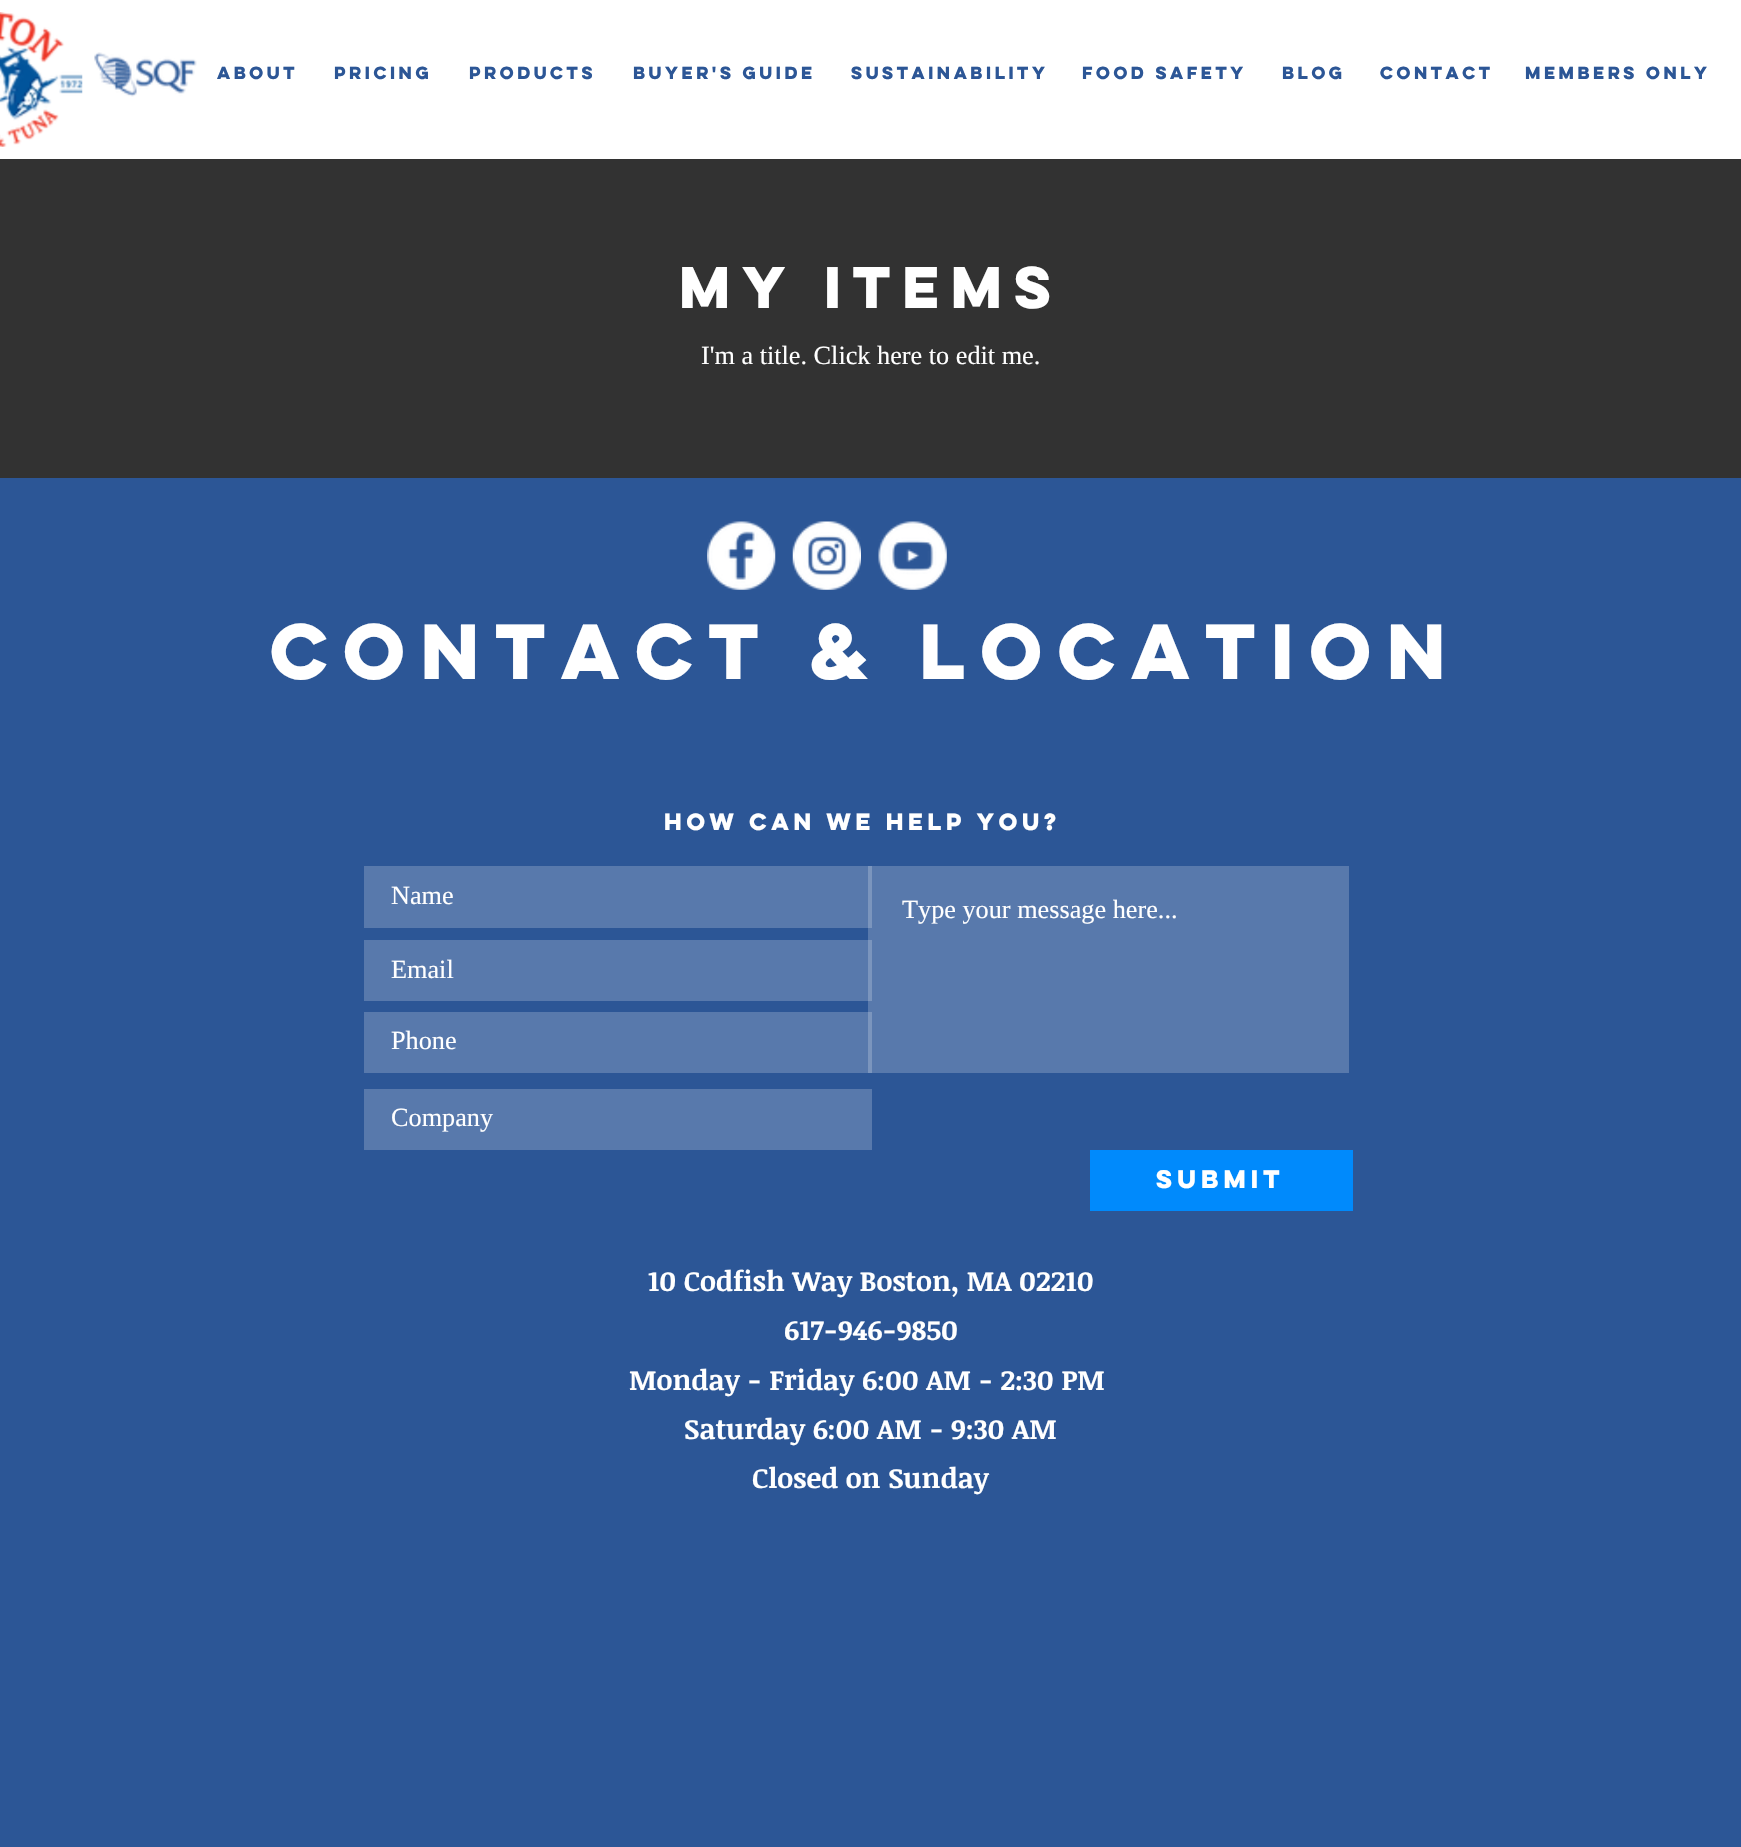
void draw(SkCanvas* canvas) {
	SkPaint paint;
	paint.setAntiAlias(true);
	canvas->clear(0xff323232);
	paint.setColor(0xffffffff);
	canvas->drawRect(SkRect::MakeXYWH(0, 0, 1741, 159), paint);
	canvas->drawImageRect(SkImages::DeferredFromEncodedData(SkData::MakeFromFileName("img1.png")), SkRect::MakeXYWH(0, 12, 83, 135), SkSamplingOptions());
	canvas->drawImageRect(SkImages::DeferredFromEncodedData(SkData::MakeFromFileName("img2.png")), SkRect::MakeXYWH(94, 52, 103, 45), SkSamplingOptions());
	SkFont f1(fontMgr->matchFamilyStyle("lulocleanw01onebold", SkFontStyle::Bold()), 15.75);
	f1.setSubpixel(true);
	paint.setColor(0xff2c5696);
	canvas->drawString("ABOUT", 217, 79, f1, paint);
	canvas->drawString("PRICING", 334, 79, f1, paint);
	canvas->drawString("PRODUCTS", 469, 79, f1, paint);
	canvas->drawString("BUYER'S GUIDE", 633, 79, f1, paint);
	canvas->drawString("SUSTAINABILITY", 851, 79, f1, paint);
	canvas->drawString("FOOD SAFETY", 1082, 79, f1, paint);
	canvas->drawString("BLOG", 1282, 79, f1, paint);
	canvas->drawString("CONTACT", 1380, 79, f1, paint);
	canvas->drawString("MEMBERS ONLY", 1525, 79, f1, paint);
	SkFont f2(fontMgr->matchFamilyStyle("lulocleanw01onebold", SkFontStyle::Bold()), 52.5);
	f2.setSubpixel(true);
	paint.setColor(0xffffffff);
	canvas->drawString("My Items", 679, 308, f2, paint);
	SkFont f3(fontMgr->matchFamilyStyle("Liberation Serif", SkFontStyle::Normal()), 26.25);
	f3.setSubpixel(true);
	canvas->drawString("I'm a title. Click here to edit me.", 701, 364, f3, paint);
	paint.setColor(0xff2c5696);
	canvas->drawRect(SkRect::MakeXYWH(0, 478, 1741, 1369), paint);
	paint.setColor(0xff5879ac);
	canvas->drawRect(SkRect::MakeXYWH(868, 866, 481, 207), paint);
	canvas->drawImageRect(SkImages::DeferredFromEncodedData(SkData::MakeFromFileName("img3.png")), SkRect::MakeXYWH(707, 521, 69, 69), SkSamplingOptions());
	canvas->drawImageRect(SkImages::DeferredFromEncodedData(SkData::MakeFromFileName("img4.png")), SkRect::MakeXYWH(792, 521, 69, 69), SkSamplingOptions());
	canvas->drawImageRect(SkImages::DeferredFromEncodedData(SkData::MakeFromFileName("img5.png")), SkRect::MakeXYWH(878, 521, 69, 69), SkSamplingOptions());
	SkFont f4(fontMgr->matchFamilyStyle("lulocleanw01onebold", SkFontStyle::Bold()), 70);
	f4.setSubpixel(true);
	paint.setColor(0xffffffff);
	canvas->drawString("CONTACT & LOCATION", 270, 679, f4, paint);
	SkFont f5(fontMgr->matchFamilyStyle("lulocleanw01onebold", SkFontStyle::Bold()), 21);
	f5.setSubpixel(true);
	canvas->drawString("How can we help you?", 664, 830, f5, paint);
	paint.setColor(0xff5879ac);
	canvas->drawRect(SkRect::MakeXYWH(364, 866, 504, 62), paint);
	paint.setColor(0xff7b95bd);
	canvas->drawRect(SkRect::MakeXYWH(868, 866, 4, 62), paint);
	paint.setColor(0xffffffff);
	canvas->drawString("Name", 391, 904, f3, paint);
	canvas->drawString("Type your message here...", 902, 918, f3, paint);
	paint.setColor(0xff5879ac);
	canvas->drawRect(SkRect::MakeXYWH(364, 940, 504, 61), paint);
	paint.setColor(0xff7b95bd);
	canvas->drawRect(SkRect::MakeXYWH(868, 940, 4, 61), paint);
	paint.setColor(0xffffffff);
	canvas->drawString("Email", 391, 978, f3, paint);
	paint.setColor(0xff5879ac);
	canvas->drawRect(SkRect::MakeXYWH(364, 1012, 504, 61), paint);
	paint.setColor(0xff7b95bd);
	canvas->drawRect(SkRect::MakeXYWH(868, 1012, 4, 61), paint);
	paint.setColor(0xffffffff);
	canvas->drawString("Phone", 391, 1049, f3, paint);
	paint.setColor(0xff5879ac);
	canvas->drawRect(SkRect::MakeXYWH(364, 1089, 508, 61), paint);
	paint.setColor(0xffffffff);
	canvas->drawString("Company", 391, 1126, f3, paint);
	paint.setColor(0xff008afc);
	canvas->drawRect(SkRect::MakeXYWH(1090, 1150, 263, 61), paint);
	SkFont f6(fontMgr->matchFamilyStyle("lulocleanw01onebold", SkFontStyle::Bold()), 22.75);
	f6.setSubpixel(true);
	paint.setColor(0xffffffff);
	canvas->drawString("Submit", 1156, 1188, f6, paint);
	SkFont f7(fontMgr->matchFamilyStyle("Noticia Text", SkFontStyle::Bold()), 28);
	f7.setSubpixel(true);
	canvas->drawString("10 Codfish Way Boston, MA 02210", 648, 1291, f7, paint);
	canvas->drawString("617-946-9850", 784, 1340, f7, paint);
	canvas->drawString("Monday - Friday 6:00 AM - 2:30 PM", 629, 1390, f7, paint);
	canvas->drawString("Saturday 6:00 AM - 9:30 AM", 684, 1439, f7, paint);
	canvas->drawString("Closed on Sunday", 752, 1488, f7, paint);
}
